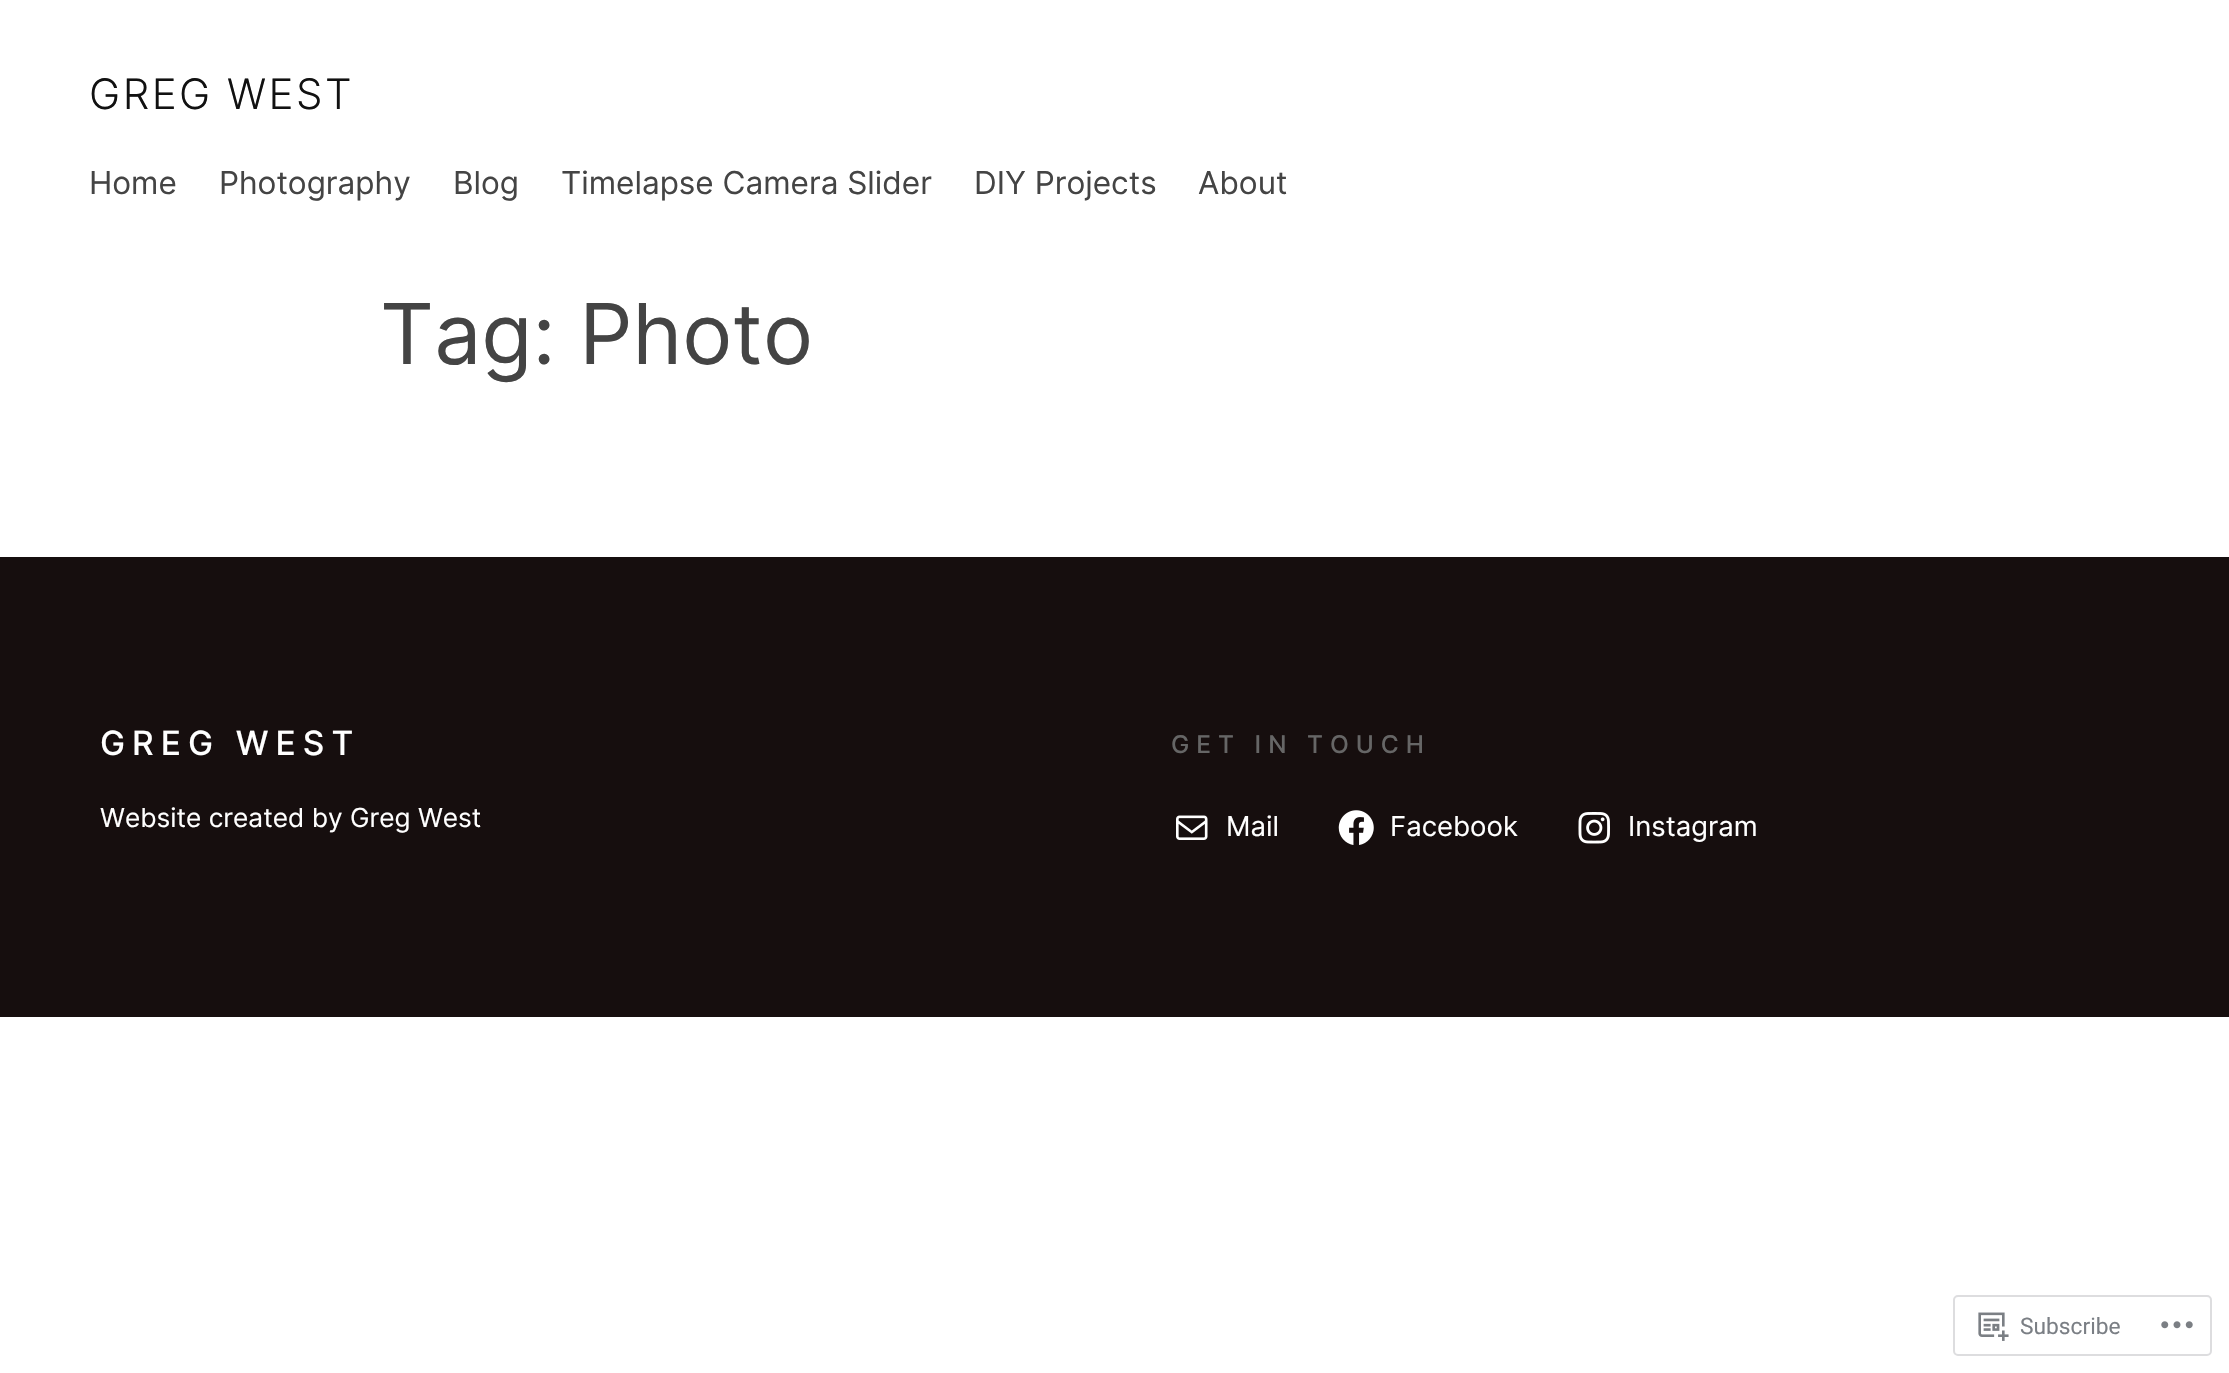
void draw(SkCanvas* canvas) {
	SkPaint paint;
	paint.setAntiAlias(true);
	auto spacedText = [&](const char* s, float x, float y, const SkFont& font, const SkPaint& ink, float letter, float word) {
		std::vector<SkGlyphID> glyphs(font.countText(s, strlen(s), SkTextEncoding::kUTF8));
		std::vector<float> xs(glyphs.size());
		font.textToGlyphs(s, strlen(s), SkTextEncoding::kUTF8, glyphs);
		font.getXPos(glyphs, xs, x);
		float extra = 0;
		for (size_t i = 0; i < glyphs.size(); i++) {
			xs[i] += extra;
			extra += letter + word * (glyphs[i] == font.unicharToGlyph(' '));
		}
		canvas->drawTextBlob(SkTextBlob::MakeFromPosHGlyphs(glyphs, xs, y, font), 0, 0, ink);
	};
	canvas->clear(0xffffffff);
	SkFont f1(fontMgr->matchFamilyStyle("Inter", SkFontStyle(300, SkFontStyle::kNormal_Width, SkFontStyle::kUpright_Slant)), 42);
	f1.setSubpixel(true);
	paint.setColor(0xff111111);
	spacedText("GREG WEST", 89, 109, f1, paint, 2.5, 0);
	SkFont f2(fontMgr->matchFamilyStyle("Inter", SkFontStyle::Normal()), 31.5);
	f2.setSubpixel(true);
	paint.setColor(0xff444444);
	canvas->drawString("Home", 89, 194, f2, paint);
	canvas->drawString("Photography", 219, 194, f2, paint);
	canvas->drawString("Blog", 453, 194, f2, paint);
	canvas->drawString("Timelapse Camera Slider", 561, 194, f2, paint);
	canvas->drawString("DIY Projects", 974, 194, f2, paint);
	canvas->drawString("About", 1198, 194, f2, paint);
	SkFont f3(fontMgr->matchFamilyStyle("Inter", SkFontStyle::Normal()), 84);
	f3.setSubpixel(true);
	canvas->drawString("Tag: Photo", 380, 364, f3, paint);
	paint.setColor(0xff160e0e);
	canvas->drawRect(SkRect::MakeXYWH(0, 557, 2229, 460), paint);
	SkFont f4(fontMgr->matchFamilyStyle("Inter", SkFontStyle(500, SkFontStyle::kNormal_Width, SkFontStyle::kUpright_Slant)), 33.5);
	f4.setSubpixel(true);
	paint.setColor(0xffffffff);
	spacedText("GREG WEST", 100, 755, f4, paint, 7, 0);
	SkFont f5(fontMgr->matchFamilyStyle("Inter", SkFontStyle::Normal()), 26.25);
	f5.setSubpixel(true);
	canvas->drawString("Website created by Greg West", 100, 827, f5, paint);
	SkFont f6(fontMgr->matchFamilyStyle("Inter", SkFontStyle(500, SkFontStyle::kNormal_Width, SkFontStyle::kUpright_Slant)), 24.5);
	f6.setSubpixel(true);
	paint.setColor(0xff666666);
	spacedText("GET IN TOUCH", 1171, 753, f6, paint, 7, 0);
	canvas->drawImageRect(SkImages::DeferredFromEncodedData(SkData::MakeFromFileName("img1.png")), SkRect::MakeXYWH(1176, 815, 32, 25), SkSamplingOptions());
	SkFont f7(fontMgr->matchFamilyStyle("Inter", SkFontStyle::Normal()), 27.5);
	f7.setSubpixel(true);
	paint.setColor(0xffffffff);
	canvas->drawString("Mail", 1226, 836, f7, paint);
	canvas->drawImageRect(SkImages::DeferredFromEncodedData(SkData::MakeFromFileName("img2.png")), SkRect::MakeXYWH(1338, 810, 36, 35), SkSamplingOptions());
	canvas->drawString("Facebook", 1390, 836, f7, paint);
	canvas->drawImageRect(SkImages::DeferredFromEncodedData(SkData::MakeFromFileName("img3.png")), SkRect::MakeXYWH(1578, 812, 32, 32), SkSamplingOptions());
	canvas->drawString("Instagram", 1628, 836, f7, paint);
	paint.setStroke(true);
	paint.setStrokeWidth(2);
	paint.setColor(0xffdddddf);
	canvas->drawRoundRect(SkRect::MakeXYWH(1954, 1296, 257, 59), 4, 4, paint);
	canvas->drawImageRect(SkImages::DeferredFromEncodedData(SkData::MakeFromFileName("img4.png")), SkRect::MakeXYWH(1978, 1312, 31, 29), SkSamplingOptions());
	SkFont f8(fontMgr->matchFamilyStyle("Roboto", SkFontStyle::Normal()), 22.75);
	f8.setSubpixel(true);
	paint.setStroke(false);
	paint.setColor(0xff7b7f85);
	canvas->drawString("Subscribe", 2020, 1334, f8, paint);
	canvas->drawImageRect(SkImages::DeferredFromEncodedData(SkData::MakeFromFileName("img5.png")), SkRect::MakeXYWH(2161, 1321, 32, 8), SkSamplingOptions());
}
